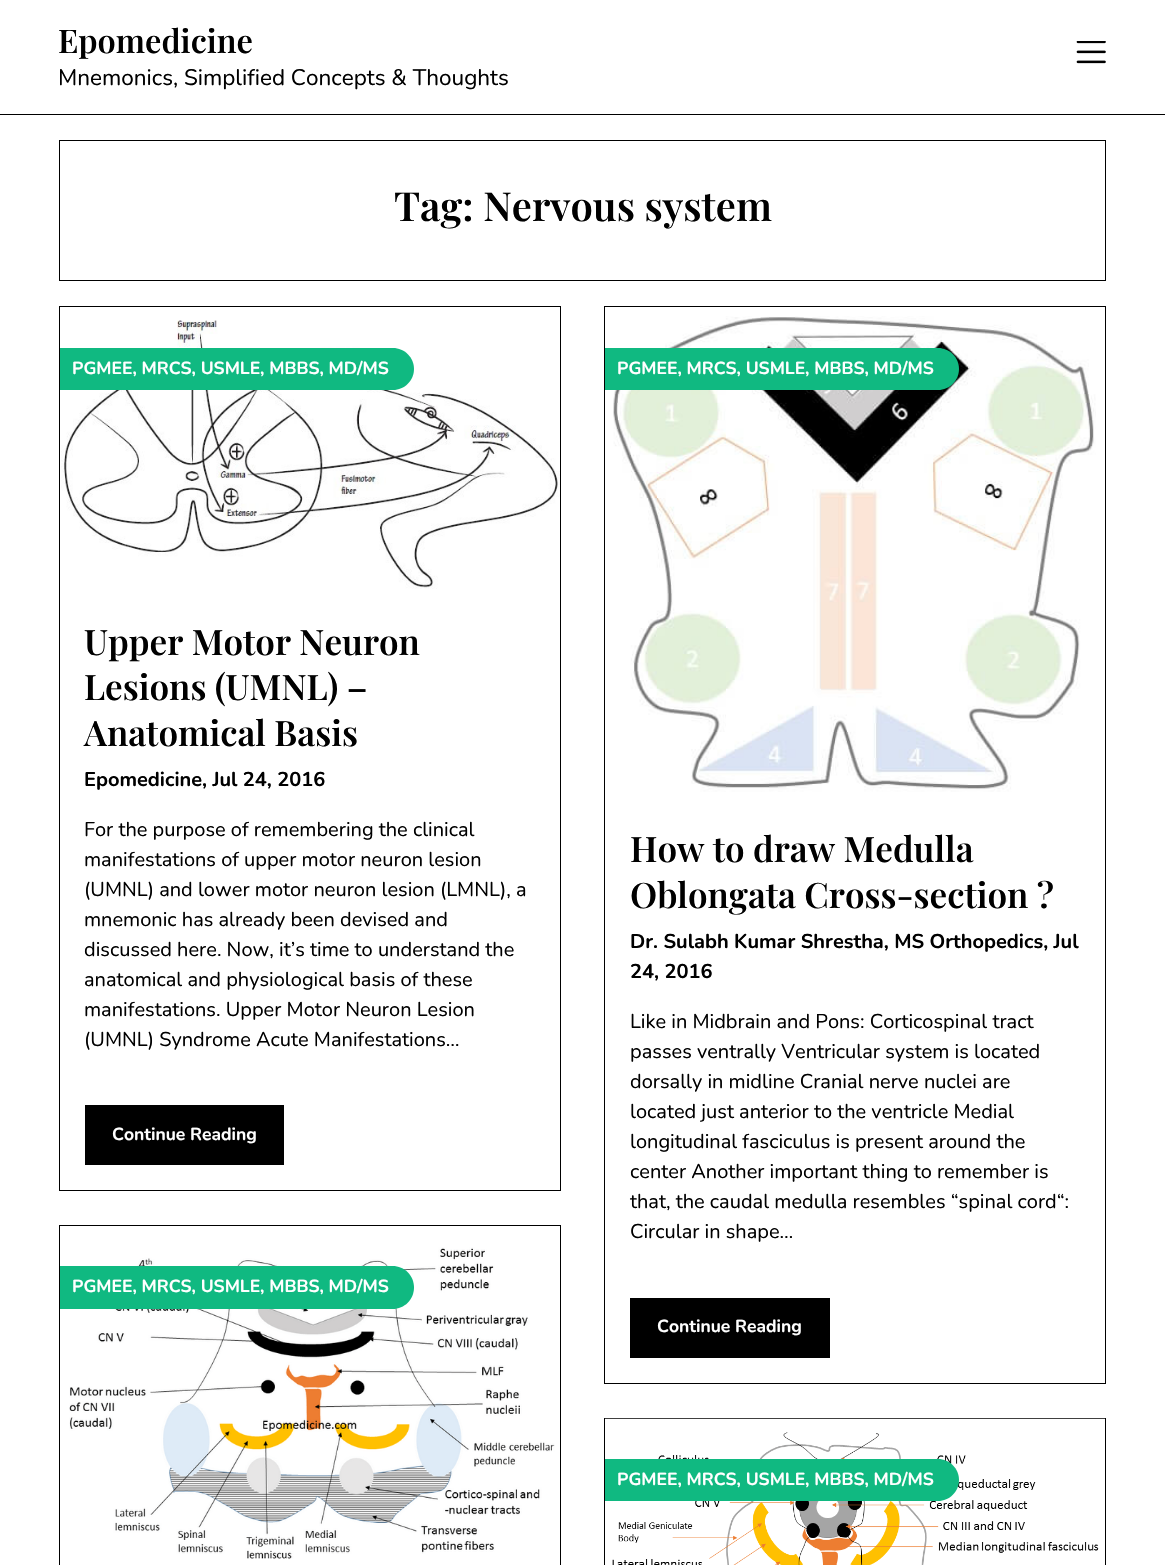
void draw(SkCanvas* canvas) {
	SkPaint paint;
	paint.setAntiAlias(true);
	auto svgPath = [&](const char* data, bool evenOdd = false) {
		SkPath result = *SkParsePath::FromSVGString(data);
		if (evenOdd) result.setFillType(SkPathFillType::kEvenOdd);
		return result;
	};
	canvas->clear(0xffffffff);
	paint.setColor(0xff000000);
	canvas->drawRect(SkRect::MakeXYWH(0, 114, 1165, 1), paint);
	SkFont f1(fontMgr->matchFamilyStyle("Playfair Display", SkFontStyle(600, SkFontStyle::kNormal_Width, SkFontStyle::kUpright_Slant)), 32.5);
	f1.setSubpixel(true);
	canvas->drawString("Epomedicine", 58, 53, f1, paint);
	SkFont f2(fontMgr->matchFamilyStyle("Nunito", SkFontStyle::Normal()), 22.5);
	f2.setSubpixel(true);
	canvas->drawString("Mnemonics, Simplified Concepts & Thoughts", 58, 85, f2, paint);
	canvas->drawImageRect(SkImages::DeferredFromEncodedData(SkData::MakeFromFileName("img1.png")), SkRect::MakeXYWH(1076, 41, 30, 23), SkSamplingOptions());
	paint.setStroke(true);
	paint.setStrokeWidth(1);
	canvas->drawRect(SkRect::MakeXYWH(59.5, 140.5, 1046, 140), paint);
	SkFont f3(fontMgr->matchFamilyStyle("Playfair Display", SkFontStyle(600, SkFontStyle::kNormal_Width, SkFontStyle::kUpright_Slant)), 40);
	f3.setSubpixel(true);
	paint.setStroke(false);
	canvas->drawString("Tag: Nervous system", 394, 221, f3, paint);
	paint.setStroke(true);
	canvas->drawRect(SkRect::MakeXYWH(59.5, 306.5, 501, 884), paint);
	canvas->drawImageRect(SkImages::DeferredFromEncodedData(SkData::MakeFromFileName("img2.png")), SkRect::MakeXYWH(61, 320, 499, 269), SkSamplingOptions());
	paint.setStroke(false);
	paint.setColor(0xff10b981);
	canvas->drawPath(svgPath("M60 348H393C404.5 348 414 357.5 414 369C414 380.5 404.5 390 393 390H60Z"), paint);
	SkFont f4(fontMgr->matchFamilyStyle("Nunito", SkFontStyle::Bold()), 17.5);
	f4.setSubpixel(true);
	paint.setColor(0xffffffff);
	canvas->drawString("PGMEE, MRCS, USMLE, MBBS, MD/MS", 72, 374, f4, paint);
	SkFont f5(fontMgr->matchFamilyStyle("Playfair Display", SkFontStyle(600, SkFontStyle::kNormal_Width, SkFontStyle::kUpright_Slant)), 35);
	f5.setSubpixel(true);
	paint.setColor(0xff000000);
	canvas->drawString("Upper Motor Neuron", 84, 655, f5, paint);
	canvas->drawString("Lesions (UMNL) –", 84, 700, f5, paint);
	canvas->drawString("Anatomical Basis", 84, 746, f5, paint);
	SkFont f6(fontMgr->matchFamilyStyle("Nunito", SkFontStyle::Bold()), 20);
	f6.setSubpixel(true);
	canvas->drawString("Epomedicine, Jul 24, 2016", 84, 786, f6, paint);
	SkFont f7(fontMgr->matchFamilyStyle("Nunito", SkFontStyle::Normal()), 20);
	f7.setSubpixel(true);
	canvas->drawString("For the purpose of remembering the clinical", 84, 836, f7, paint);
	canvas->drawString("manifestations of upper motor neuron lesion", 84, 866, f7, paint);
	canvas->drawString("(UMNL) and lower motor neuron lesion (LMNL), a", 84, 896, f7, paint);
	canvas->drawString("mnemonic has already been devised and", 84, 926, f7, paint);
	canvas->drawString("discussed here. Now, it’s time to understand the", 84, 956, f7, paint);
	canvas->drawString("anatomical and physiological basis of these", 84, 986, f7, paint);
	canvas->drawString("manifestations. Upper Motor Neuron Lesion", 84, 1016, f7, paint);
	canvas->drawString("(UMNL) Syndrome Acute Manifestations…", 84, 1046, f7, paint);
	canvas->drawRect(SkRect::MakeXYWH(85, 1105, 199, 60), paint);
	paint.setColor(0xffffffff);
	canvas->drawString("Continue Reading", 112, 1140, f4, paint);
	paint.setStroke(true);
	paint.setColor(0xff000000);
	canvas->drawRect(SkRect::MakeXYWH(59.5, 1225.5, 501, 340), paint);
	canvas->drawImageRect(SkImages::DeferredFromEncodedData(SkData::MakeFromFileName("img3.png")), SkRect::MakeXYWH(69, 1247, 486, 312), SkSamplingOptions());
	paint.setStroke(false);
	paint.setColor(0xff10b981);
	canvas->drawPath(svgPath("M60 1266H392.5C404.5 1266 414 1275.5 414 1287.5C414 1299.5 404.5 1309 392.5 1309H60Z"), paint);
	paint.setColor(0xffffffff);
	canvas->drawString("PGMEE, MRCS, USMLE, MBBS, MD/MS", 72, 1292, f4, paint);
	paint.setStroke(true);
	paint.setColor(0xff000000);
	canvas->drawRect(SkRect::MakeXYWH(604.5, 306.5, 501, 1077), paint);
	canvas->drawImageRect(SkImages::DeferredFromEncodedData(SkData::MakeFromFileName("img4.png")), SkRect::MakeXYWH(613, 316, 483, 476), SkSamplingOptions());
	paint.setStroke(false);
	paint.setColor(0xff10b981);
	canvas->drawPath(svgPath("M605 348H938C949.5 348 959 357.5 959 369C959 380.5 949.5 390 938 390H605Z"), paint);
	paint.setColor(0xffffffff);
	canvas->drawString("PGMEE, MRCS, USMLE, MBBS, MD/MS", 617, 374, f4, paint);
	paint.setColor(0xff000000);
	canvas->drawString("How to draw Medulla", 630, 862, f5, paint);
	canvas->drawString("Oblongata Cross-section ?", 630, 908, f5, paint);
	canvas->drawString("Dr. Sulabh Kumar Shrestha, MS Orthopedics, Jul", 630, 948, f6, paint);
	canvas->drawString("24, 2016", 630, 978, f6, paint);
	canvas->drawString("Like in Midbrain and Pons: Corticospinal tract", 630, 1028, f7, paint);
	canvas->drawString("passes ventrally Ventricular system is located", 630, 1058, f7, paint);
	canvas->drawString("dorsally in midline Cranial nerve nuclei are", 630, 1088, f7, paint);
	canvas->drawString("located just anterior to the ventricle Medial", 630, 1118, f7, paint);
	canvas->drawString("longitudinal fasciculus is present around the", 630, 1148, f7, paint);
	canvas->drawString("center Another important thing to remember is", 630, 1178, f7, paint);
	canvas->drawString("that, the caudal medulla resembles “spinal cord“:", 630, 1208, f7, paint);
	canvas->drawString("Circular in shape…", 630, 1238, f7, paint);
	canvas->drawRect(SkRect::MakeXYWH(630, 1298, 200, 60), paint);
	paint.setColor(0xffffffff);
	canvas->drawString("Continue Reading", 657, 1332, f4, paint);
	paint.setStroke(true);
	paint.setColor(0xff000000);
	canvas->drawRect(SkRect::MakeXYWH(604.5, 1418.5, 501, 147), paint);
	canvas->drawImageRect(SkImages::DeferredFromEncodedData(SkData::MakeFromFileName("img5.png")), SkRect::MakeXYWH(605, 1418, 500, 147), SkSamplingOptions());
	paint.setStroke(false);
	paint.setColor(0xff10b981);
	canvas->drawPath(svgPath("M605 1459H938C949.5 1459 959 1468.5 959 1480C959 1491.5 949.5 1501 938 1501H605Z"), paint);
	paint.setColor(0xffffffff);
	canvas->drawString("PGMEE, MRCS, USMLE, MBBS, MD/MS", 617, 1485, f4, paint);
}
